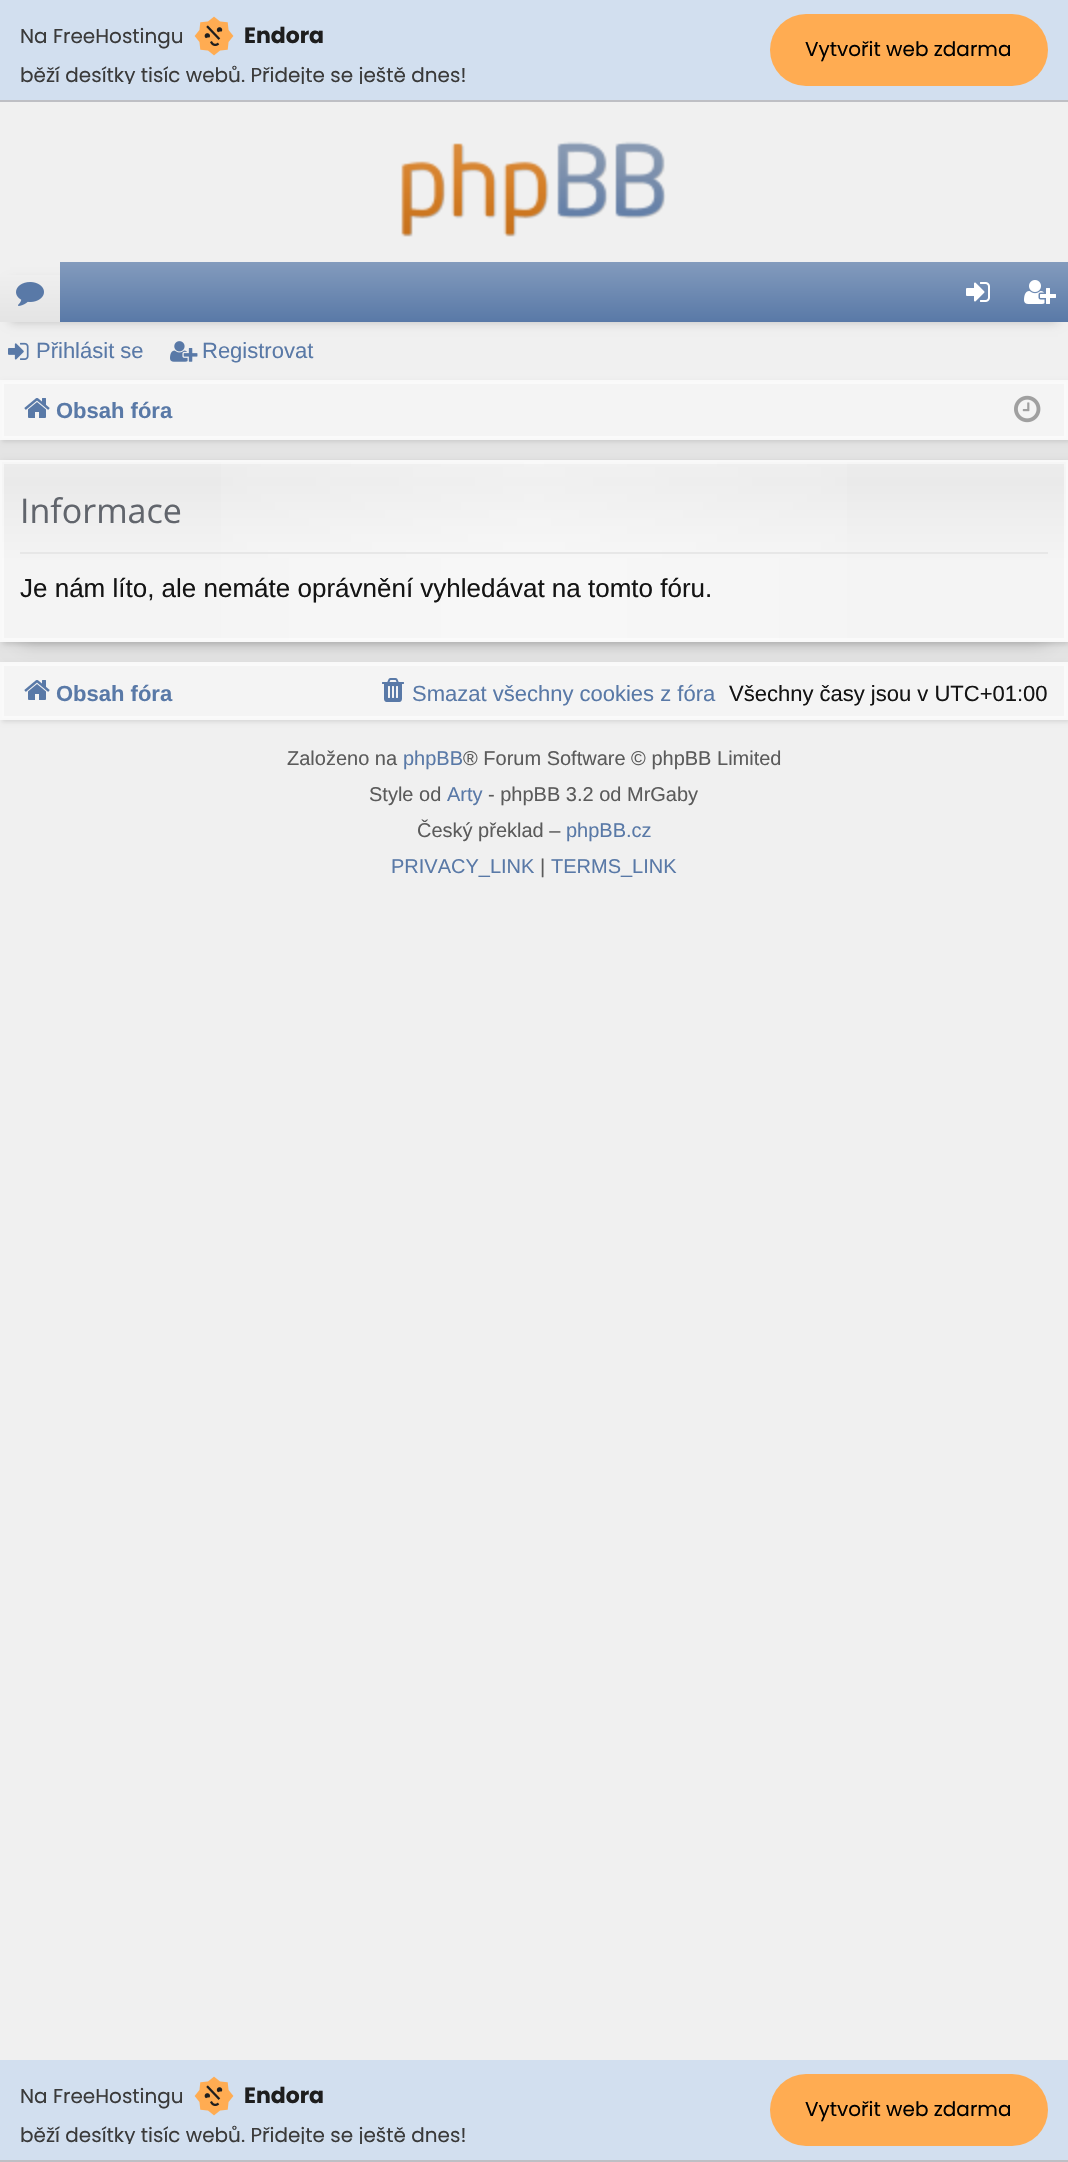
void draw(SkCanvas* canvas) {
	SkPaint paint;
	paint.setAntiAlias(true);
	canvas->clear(0xfff0f0f0);
	paint.setColor(0xffd2dfef);
	canvas->drawRect(SkRect::MakeXYWH(0, 0, 1068, 100), paint);
	paint.setColor(0xffbebfc4);
	canvas->drawRect(SkRect::MakeXYWH(0, 100, 1068, 2), paint);
	SkFont f1(fontMgr->matchFamilyStyle("Poppins", SkFontStyle::Normal()), 20);
	f1.setSubpixel(true);
	paint.setColor(0xff3a3a3a);
	canvas->drawString("Na FreeHostingu", 20, 43, f1, paint);
	canvas->drawImageRect(SkImages::DeferredFromEncodedData(SkData::MakeFromFileName("img1.png")), SkRect::MakeXYWH(194, 16, 40, 40), SkSamplingOptions());
	SkFont f2(fontMgr->matchFamilyStyle("Poppins", SkFontStyle::Bold()), 22);
	f2.setSubpixel(true);
	paint.setColor(0xff1e1e1e);
	canvas->drawString("Endora", 244, 43, f2, paint);
	canvas->save();
	canvas->clipRect(SkRect::MakeXYWH(20, 16, 750, 68));
	paint.setColor(0xff3a3a3a);
	canvas->drawString("běží desítky tisíc webů. Přidejte se ještě dnes!", 20, 82, f1, paint);
	canvas->restore();
	paint.setColor(0xffffac52);
	canvas->drawRoundRect(SkRect::MakeXYWH(770, 14, 278, 72), 36, 36, paint);
	paint.setColor(0xff000000);
	canvas->drawString("Vytvořit web zdarma", 805, 56, f1, paint);
	canvas->drawImageRect(SkImages::DeferredFromEncodedData(SkData::MakeFromFileName("img2.png")), SkRect::MakeXYWH(401, 141, 265, 96), SkSamplingOptions());
	paint.setColor(0x33000000);
	paint.setMaskFilter(SkMaskFilter::MakeBlur(kNormal_SkBlurStyle, 5));
	canvas->drawRect(SkRect::MakeXYWH(10, 282, 1048, 40), paint);
	paint.setMaskFilter(nullptr);
	{
		const SkColor colors[] = {0xff839bbd, 0xff5979a7};
		const float stops[] = {0, 1};
		const SkPoint ends[] = {{534, 262}, {534, 322}};
		paint.setShader(SkGradientShader::MakeLinear(ends, colors, stops, 2, SkTileMode::kClamp));
		paint.setAlpha(255);
	}
	canvas->drawRect(SkRect::MakeXYWH(60, 262, 1008, 60), paint);
	{
		const SkColor colors[] = {0xfff2f2f2, 0xffe4e4e4};
		const float stops[] = {0, 1};
		const SkPoint ends[] = {{30, 262}, {30, 322}};
		paint.setShader(SkGradientShader::MakeLinear(ends, colors, stops, 2, SkTileMode::kClamp));
		paint.setAlpha(255);
	}
	canvas->drawRect(SkRect::MakeXYWH(0, 275, 60, 47), paint);
	canvas->drawImageRect(SkImages::DeferredFromEncodedData(SkData::MakeFromFileName("img3.png")), SkRect::MakeXYWH(16, 282, 28, 24), SkSamplingOptions());
	canvas->drawImageRect(SkImages::DeferredFromEncodedData(SkData::MakeFromFileName("img4.png")), SkRect::MakeXYWH(966, 282, 24, 20), SkSamplingOptions());
	canvas->drawImageRect(SkImages::DeferredFromEncodedData(SkData::MakeFromFileName("img5.png")), SkRect::MakeXYWH(1024, 280, 32, 24), SkSamplingOptions());
	canvas->drawImageRect(SkImages::DeferredFromEncodedData(SkData::MakeFromFileName("img6.png")), SkRect::MakeXYWH(8, 342, 21, 18), SkSamplingOptions());
	SkFont f3(fontMgr->matchFamilyStyle("Liberation Sans", SkFontStyle::Normal()), 22);
	f3.setSubpixel(true);
	paint.setShader(nullptr);
	paint.setColor(0xff5979a7);
	canvas->drawString("Přihlásit se", 36, 358, f3, paint);
	canvas->drawImageRect(SkImages::DeferredFromEncodedData(SkData::MakeFromFileName("img7.png")), SkRect::MakeXYWH(170, 341, 28, 21), SkSamplingOptions());
	canvas->drawString("Registrovat", 202, 358, f3, paint);
	paint.setColor(0xffe4e4e4);
	canvas->drawRect(SkRect::MakeXYWH(0, 440, 1068, 222), paint);
	paint.setColor(0x1a000000);
	paint.setMaskFilter(SkMaskFilter::MakeBlur(kNormal_SkBlurStyle, 2));
	canvas->drawRect(SkRect::MakeXYWH(2, 382, 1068, 60), paint);
	paint.setMaskFilter(nullptr);
	paint.setColor(0xfff4f4f4);
	canvas->drawRect(SkRect::MakeXYWH(3, 383, 1062, 54), paint);
	paint.setStroke(true);
	paint.setStrokeWidth(2);
	paint.setColor(0xfffafafa);
	canvas->drawRect(SkRect::MakeXYWH(3, 383, 1062, 54), paint);
	paint.setColor(0xfff9f9f9);
	canvas->drawRect(SkRect::MakeXYWH(1, 381, 1066, 58), paint);
	canvas->drawImageRect(SkImages::DeferredFromEncodedData(SkData::MakeFromFileName("img8.png")), SkRect::MakeXYWH(24, 398, 26, 20), SkSamplingOptions());
	SkFont f4(fontMgr->matchFamilyStyle("Liberation Sans", SkFontStyle::Bold()), 22);
	f4.setSubpixel(true);
	paint.setStroke(false);
	paint.setColor(0xff5979a7);
	canvas->drawString("Obsah fóra", 56, 418, f4, paint);
	canvas->drawImageRect(SkImages::DeferredFromEncodedData(SkData::MakeFromFileName("img9.png")), SkRect::MakeXYWH(1014, 395, 27, 28), SkSamplingOptions());
	paint.setColor(0x33000000);
	paint.setMaskFilter(SkMaskFilter::MakeBlur(kNormal_SkBlurStyle, 10));
	canvas->drawRect(SkRect::MakeXYWH(20, 500, 1028, 142), paint);
	paint.setMaskFilter(nullptr);
	paint.setColor(0x26000000);
	paint.setMaskFilter(SkMaskFilter::MakeBlur(kNormal_SkBlurStyle, 3));
	canvas->drawRect(SkRect::MakeXYWH(2, 462, 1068, 182), paint);
	paint.setMaskFilter(nullptr);
	{
		const SkColor colors[] = {0xffececec, 0xffeaeaea, 0xfff4f4f4};
		const float stops[] = {0, 0.11, 0.56};
		const SkPoint ends[] = {{534, 462}, {534, 640}};
		paint.setShader(SkGradientShader::MakeLinear(ends, colors, stops, 3, SkTileMode::kClamp));
		paint.setAlpha(255);
	}
	canvas->drawRect(SkRect::MakeXYWH(2, 462, 1064, 178), paint);
	{
		const SkColor colors[] = {0x00ffffff, 0x4dffffff, 0x00ffffff};
		const float stops[] = {0, 0.5, 1};
		const SkPoint ends[] = {{2, 551}, {1066, 551}};
		paint.setShader(SkGradientShader::MakeLinear(ends, colors, stops, 3, SkTileMode::kClamp));
		paint.setAlpha(255);
	}
	canvas->drawRect(SkRect::MakeXYWH(221, 462, 626, 178), paint);
	paint.setStroke(true);
	paint.setShader(nullptr);
	paint.setColor(0x80ffffff);
	canvas->drawRect(SkRect::MakeXYWH(3, 463, 1062, 176), paint);
	paint.setColor(0xfff9f9f9);
	canvas->drawRect(SkRect::MakeXYWH(1, 461, 1066, 180), paint);
	paint.setStroke(false);
	paint.setColor(0xffe7e7e7);
	canvas->drawRect(SkRect::MakeXYWH(20, 552, 1028, 2), paint);
	SkFont f5(fontMgr->matchFamilyStyle("Open Sans", SkFontStyle::Normal()), 34);
	f5.setSubpixel(true);
	paint.setColor(0xff61656c);
	canvas->drawString("Informace", 20, 523, f5, paint);
	SkFont f6(fontMgr->matchFamilyStyle("Liberation Sans", SkFontStyle::Normal()), 26);
	f6.setSubpixel(true);
	paint.setColor(0xff141414);
	canvas->drawString("Je nám líto, ale nemáte oprávnění vyhledávat na tomto fóru.", 20, 597, f6, paint);
	paint.setColor(0x1a000000);
	paint.setMaskFilter(SkMaskFilter::MakeBlur(kNormal_SkBlurStyle, 2));
	canvas->drawRect(SkRect::MakeXYWH(2, 664, 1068, 58), paint);
	paint.setMaskFilter(nullptr);
	paint.setColor(0xfff4f4f4);
	canvas->drawRect(SkRect::MakeXYWH(3, 665, 1062, 52), paint);
	paint.setStroke(true);
	paint.setColor(0xfffafafa);
	canvas->drawRect(SkRect::MakeXYWH(3, 665, 1062, 52), paint);
	paint.setColor(0xfff9f9f9);
	canvas->drawRect(SkRect::MakeXYWH(1, 663, 1066, 56), paint);
	canvas->drawImageRect(SkImages::DeferredFromEncodedData(SkData::MakeFromFileName("img8.png")), SkRect::MakeXYWH(24, 680, 26, 20), SkSamplingOptions());
	paint.setStroke(false);
	paint.setColor(0xff5979a7);
	canvas->drawString("Obsah fóra", 56, 701, f4, paint);
	canvas->drawImageRect(SkImages::DeferredFromEncodedData(SkData::MakeFromFileName("img10.png")), SkRect::MakeXYWH(382, 678, 22, 24), SkSamplingOptions());
	canvas->drawString("Smazat všechny cookies z fóra", 412, 701, f3, paint);
	paint.setColor(0xff141414);
	canvas->drawString("Všechny časy jsou v UTC+01:00", 729, 701, f3, paint);
	SkFont f7(fontMgr->matchFamilyStyle("Liberation Sans", SkFontStyle::Normal()), 20);
	f7.setSubpixel(true);
	paint.setColor(0xff5b5b5b);
	canvas->drawString("Založeno na", 287, 765, f7, paint);
	paint.setColor(0xff5979a7);
	canvas->drawString("phpBB", 403, 765, f7, paint);
	paint.setColor(0xff5b5b5b);
	canvas->drawString("® Forum Software © phpBB Limited", 463, 765, f7, paint);
	canvas->drawString("Style od", 369, 801, f7, paint);
	paint.setColor(0xff5979a7);
	canvas->drawString("Arty", 447, 801, f7, paint);
	paint.setColor(0xff5b5b5b);
	canvas->drawString("- phpBB 3.2 od MrGaby", 488, 801, f7, paint);
	canvas->drawString("Český překlad –", 417, 837, f7, paint);
	paint.setColor(0xff5979a7);
	canvas->drawString("phpBB.cz", 566, 837, f7, paint);
	canvas->drawString("PRIVACY_LINK", 391, 873, f7, paint);
	paint.setColor(0xff5b5b5b);
	canvas->drawString("|", 540, 873, f7, paint);
	paint.setColor(0xff5979a7);
	canvas->drawString("TERMS_LINK", 551, 873, f7, paint);
	paint.setColor(0xffd2dfef);
	canvas->drawRect(SkRect::MakeXYWH(0, 2060, 1068, 100), paint);
	paint.setColor(0xffbebfc4);
	canvas->drawRect(SkRect::MakeXYWH(0, 2160, 1068, 2), paint);
	paint.setColor(0xff3a3a3a);
	canvas->drawString("Na FreeHostingu", 20, 2103, f1, paint);
	canvas->drawImageRect(SkImages::DeferredFromEncodedData(SkData::MakeFromFileName("img1.png")), SkRect::MakeXYWH(194, 2076, 40, 40), SkSamplingOptions());
	paint.setColor(0xff1e1e1e);
	canvas->drawString("Endora", 244, 2103, f2, paint);
	canvas->save();
	canvas->clipRect(SkRect::MakeXYWH(20, 2076, 750, 68));
	paint.setColor(0xff3a3a3a);
	canvas->drawString("běží desítky tisíc webů. Přidejte se ještě dnes!", 20, 2142, f1, paint);
	canvas->restore();
	paint.setColor(0xffffac52);
	canvas->drawRoundRect(SkRect::MakeXYWH(770, 2074, 278, 72), 36, 36, paint);
	paint.setColor(0xff000000);
	canvas->drawString("Vytvořit web zdarma", 805, 2116, f1, paint);
}
